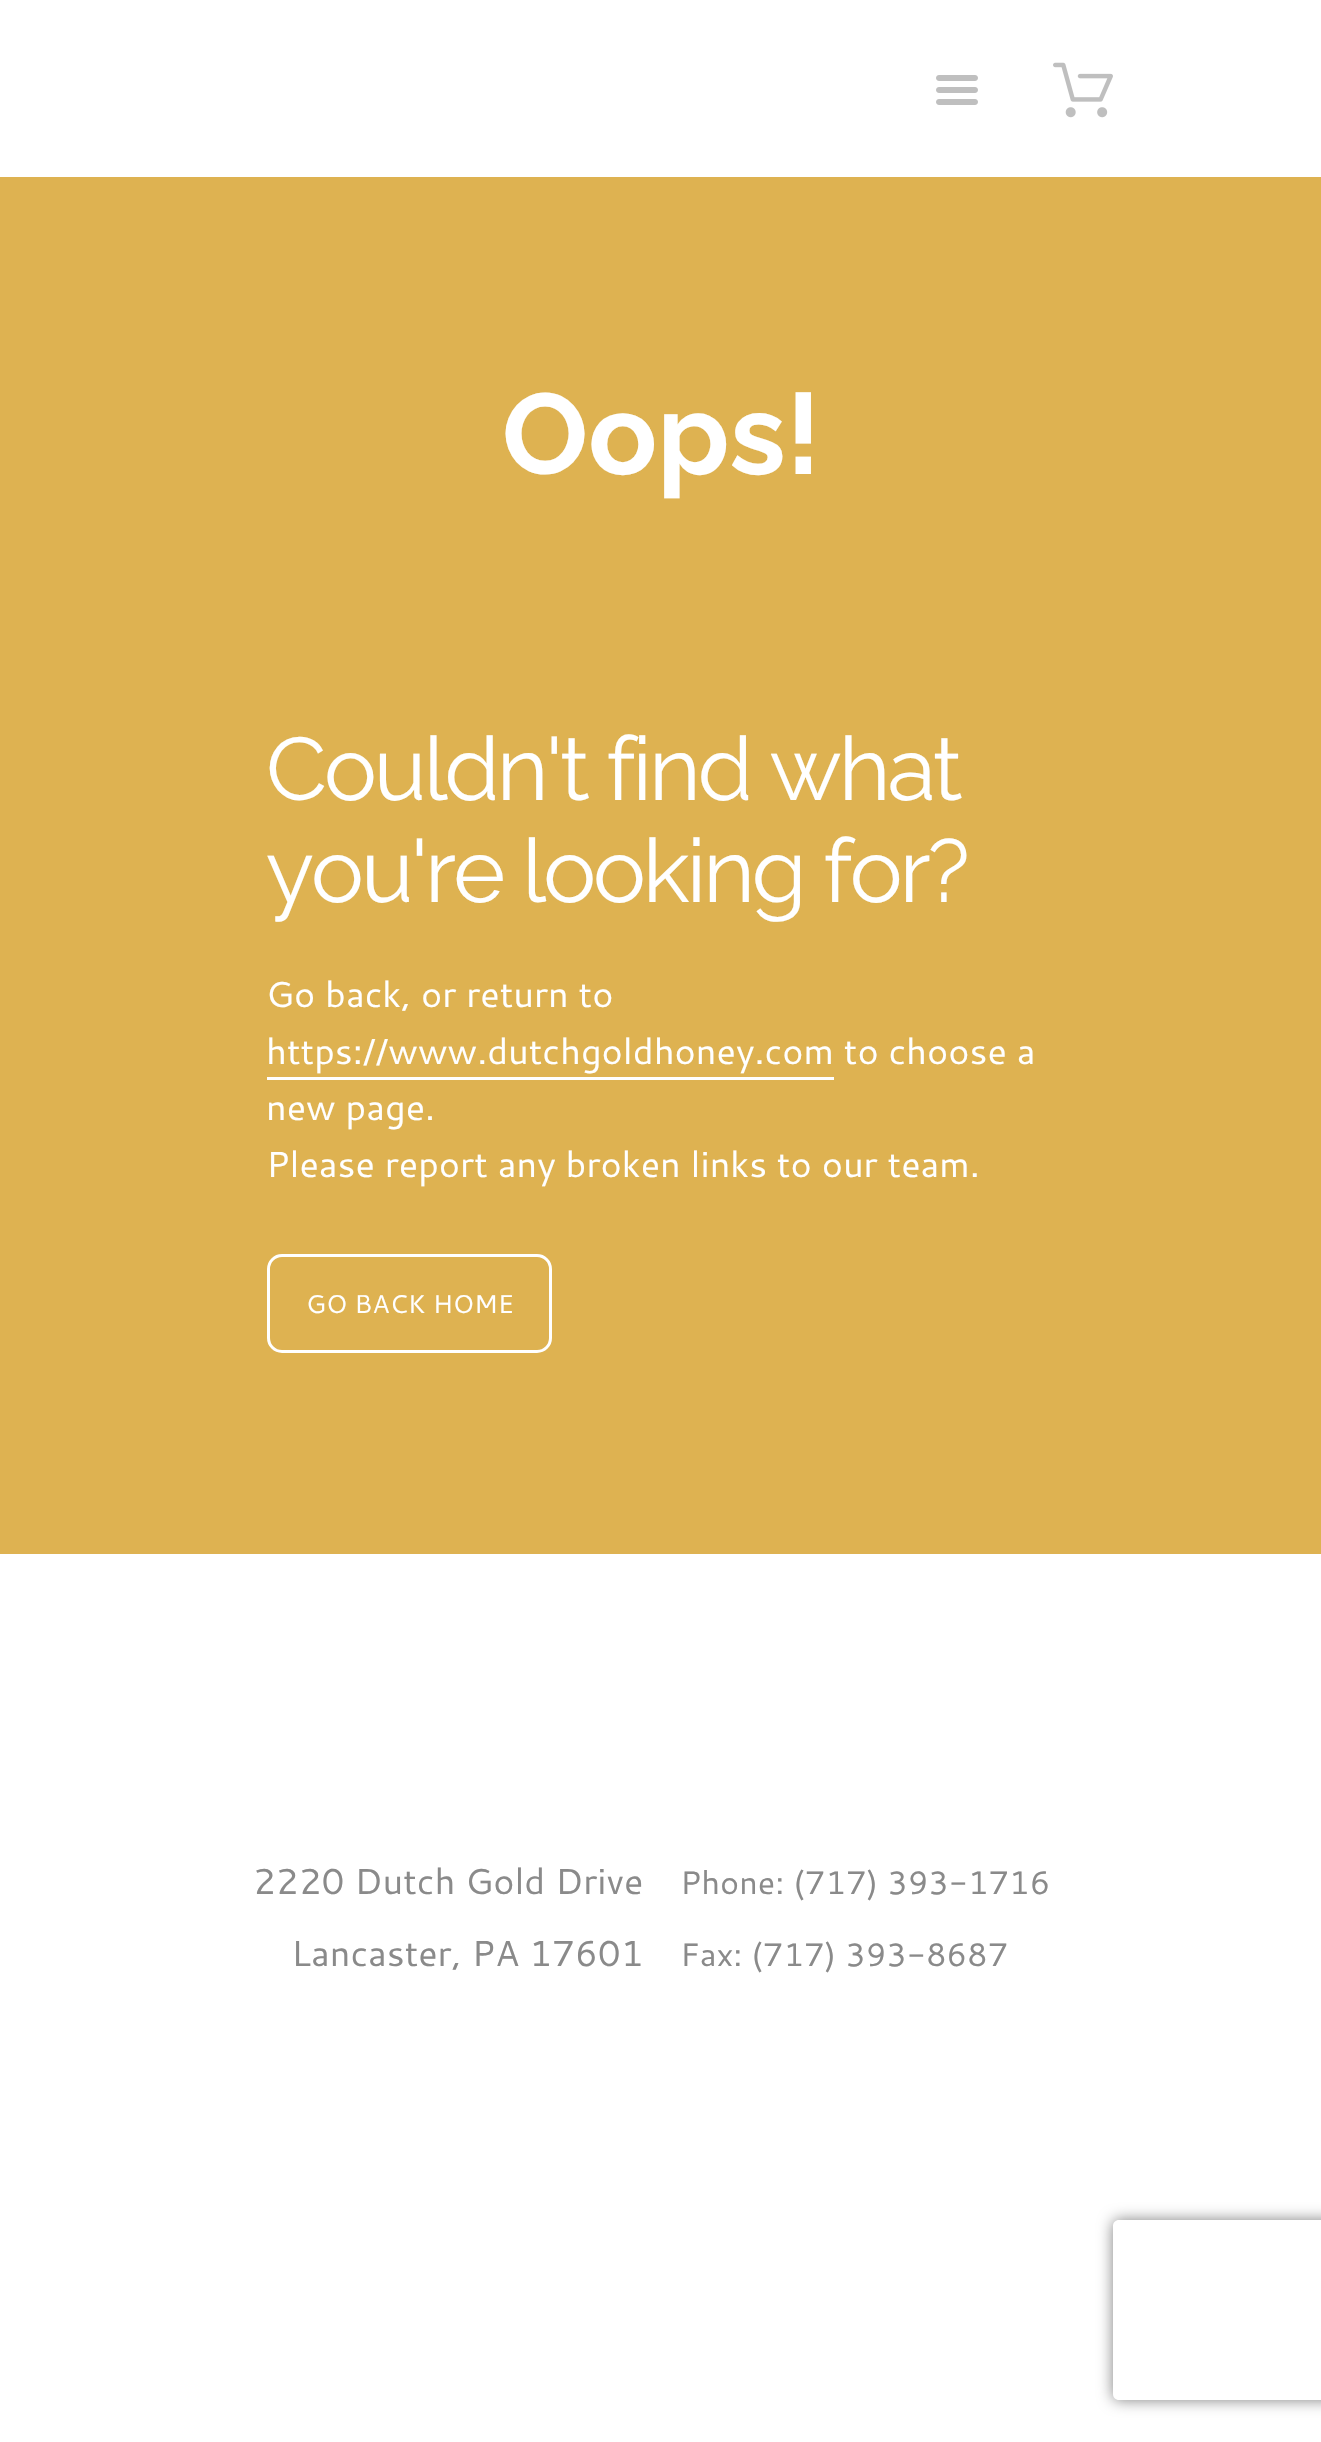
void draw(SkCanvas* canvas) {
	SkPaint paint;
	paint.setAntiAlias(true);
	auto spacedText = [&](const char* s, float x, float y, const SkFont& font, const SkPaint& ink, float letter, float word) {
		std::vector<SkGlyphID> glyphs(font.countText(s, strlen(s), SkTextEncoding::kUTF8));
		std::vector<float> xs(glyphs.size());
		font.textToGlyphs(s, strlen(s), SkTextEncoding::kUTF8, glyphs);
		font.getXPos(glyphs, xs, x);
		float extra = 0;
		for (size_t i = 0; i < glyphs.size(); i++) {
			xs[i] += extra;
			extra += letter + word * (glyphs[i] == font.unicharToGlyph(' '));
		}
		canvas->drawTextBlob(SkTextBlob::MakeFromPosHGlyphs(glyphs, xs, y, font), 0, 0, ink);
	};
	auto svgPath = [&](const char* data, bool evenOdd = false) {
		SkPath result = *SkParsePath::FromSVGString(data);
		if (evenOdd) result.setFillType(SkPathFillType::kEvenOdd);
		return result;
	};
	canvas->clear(0xffffffff);
	canvas->drawImageRect(SkImages::DeferredFromEncodedData(SkData::MakeFromFileName("img1.png")), SkRect::MakeXYWH(936, 75, 42, 30), SkSamplingOptions());
	canvas->drawImageRect(SkImages::DeferredFromEncodedData(SkData::MakeFromFileName("img2.png")), SkRect::MakeXYWH(1053, 62, 60, 56), SkSamplingOptions());
	paint.setColor(0xffdeb251);
	canvas->drawRect(SkRect::MakeXYWH(0, 177, 1321, 1377), paint);
	SkFont f1(fontMgr->matchFamilyStyle("Raleway", SkFontStyle::Bold()), 114);
	f1.setSubpixel(true);
	paint.setColor(0xffffffff);
	canvas->drawString("Oops!", 502, 474, f1, paint);
	SkFont f2(fontMgr->matchFamilyStyle("Raleway", SkFontStyle::Normal()), 88.75);
	f2.setSubpixel(true);
	spacedText("Couldn't find what", 266, 800, f2, paint, -3, 0);
	spacedText("you're looking for?", 266, 902, f2, paint, -3, 0);
	SkFont f3(fontMgr->matchFamilyStyle("Cantarell", SkFontStyle::Normal()), 36);
	f3.setSubpixel(true);
	canvas->drawString("Go back, or return to", 266, 1007, f3, paint);
	canvas->drawString("https://www.dutchgoldhoney.com to choose a", 266, 1064, f3, paint);
	paint.setColor(0xfffffefe);
	canvas->drawRect(SkRect::MakeXYWH(267, 1077, 567, 3), paint);
	paint.setColor(0xffffffff);
	canvas->drawString("new page.", 266, 1120, f3, paint);
	canvas->drawString("Please report any broken links to our team.", 266, 1177, f3, paint);
	paint.setStroke(true);
	paint.setStrokeWidth(3);
	canvas->drawRoundRect(SkRect::MakeXYWH(268.5, 1255.5, 282, 96), 13.5, 13.5, paint);
	SkFont f4(fontMgr->matchFamilyStyle("Cantarell", SkFontStyle::Normal()), 25.75);
	f4.setSubpixel(true);
	paint.setStroke(false);
	canvas->drawString("GO BACK HOME", 306, 1313, f4, paint);
	paint.setColor(0xff8a8a8a);
	canvas->drawString("2220 Dutch Gold Drive", 253, 1894, f3, paint);
	canvas->drawString("Lancaster, PA 17601", 291, 1966, f3, paint);
	SkFont f5(fontMgr->matchFamilyStyle("Cantarell", SkFontStyle::Normal()), 32.4);
	f5.setSubpixel(true);
	canvas->drawString("Phone: (717) 393-1716", 680, 1894, f5, paint);
	canvas->drawString("Fax: (717) 393-8687", 680, 1966, f5, paint);
	canvas->save();
	canvas->clipPath(svgPath("M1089 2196H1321V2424H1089ZM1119 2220H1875C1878.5 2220 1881 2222.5 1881 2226V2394C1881 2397.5 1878.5 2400 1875 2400H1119C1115.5 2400 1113 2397.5 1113 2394V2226C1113 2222.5 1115.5 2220 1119 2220Z", true), true);
	paint.setColor(0xff808080);
	paint.setMaskFilter(SkMaskFilter::MakeBlur(kNormal_SkBlurStyle, 7.5));
	canvas->drawRoundRect(SkRect::MakeXYWH(1113, 2220, 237, 180), 6, 6, paint);
	paint.setMaskFilter(nullptr);
	canvas->restore();
}
